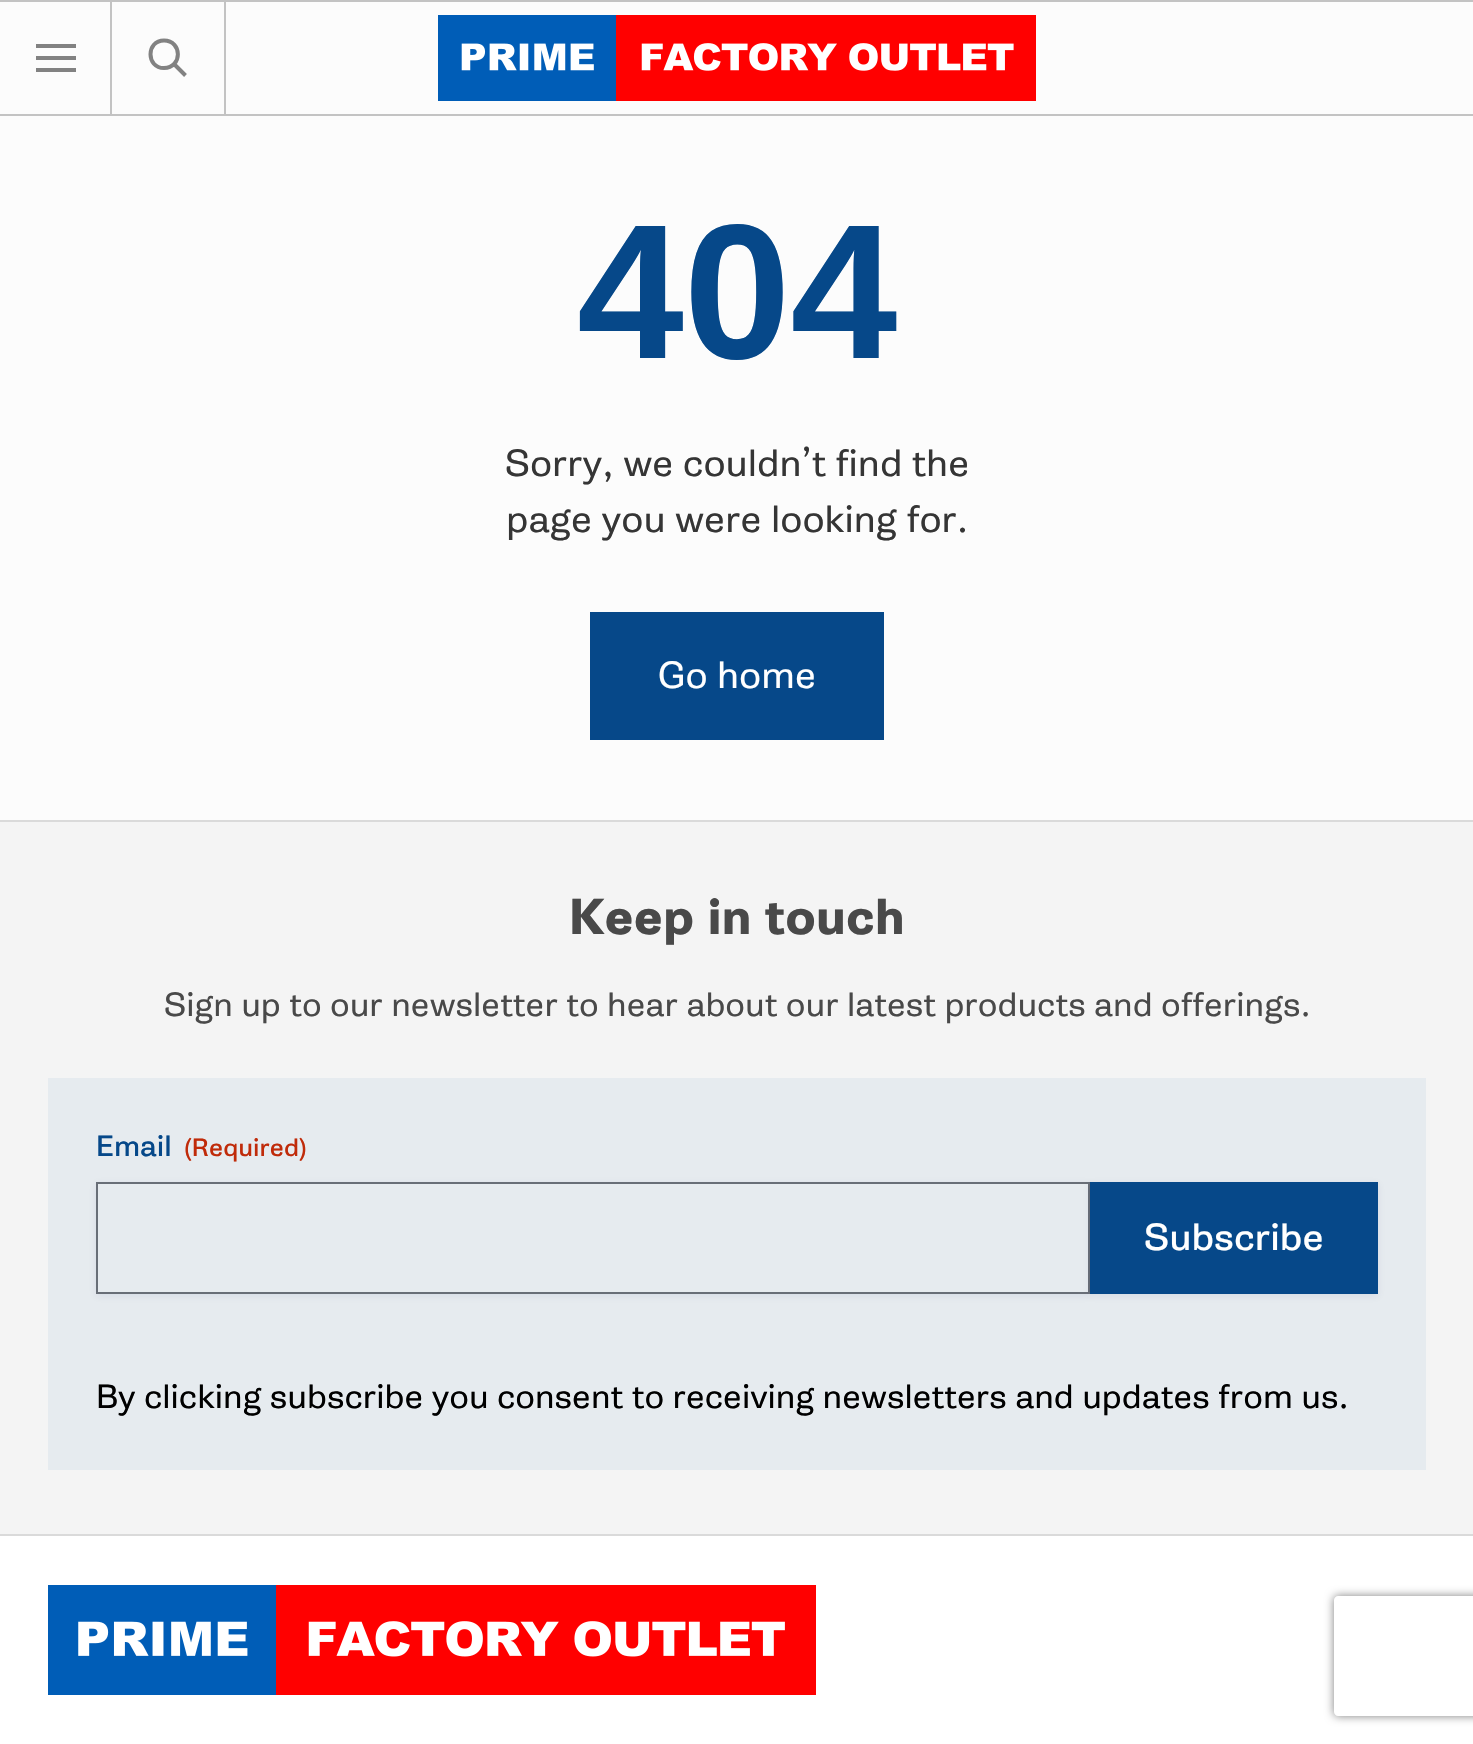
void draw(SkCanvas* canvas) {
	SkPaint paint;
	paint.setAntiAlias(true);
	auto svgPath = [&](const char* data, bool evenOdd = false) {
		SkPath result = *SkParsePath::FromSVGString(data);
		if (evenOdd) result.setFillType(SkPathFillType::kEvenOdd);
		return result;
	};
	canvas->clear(0xffffffff);
	paint.setColor(0xfffcfcfc);
	canvas->drawRect(SkRect::MakeXYWH(0, 2, 1473, 112), paint);
	paint.setColor(0xffc3c3c3);
	canvas->drawRect(SkRect::MakeXYWH(0, 0, 1473, 2), paint);
	canvas->drawRect(SkRect::MakeXYWH(0, 114, 1473, 2), paint);
	canvas->drawRect(SkRect::MakeXYWH(224, 2, 2, 112), paint);
	canvas->drawRect(SkRect::MakeXYWH(110, 2, 2, 112), paint);
	paint.setColor(0xff828282);
	canvas->drawRect(SkRect::MakeXYWH(36, 44, 40, 4), paint);
	canvas->drawRect(SkRect::MakeXYWH(36, 56, 40, 4), paint);
	canvas->drawRect(SkRect::MakeXYWH(36, 68, 40, 4), paint);
	paint.setStroke(true);
	paint.setStrokeWidth(4);
	canvas->drawPath(svgPath("M164 68C182.5 68 182.5 40.5 164 40.5C146 40.5 146 68 164 68ZM174 64L185.5 75.5"), paint);
	canvas->drawImageRect(SkImages::DeferredFromEncodedData(SkData::MakeFromFileName("img1.png")), SkRect::MakeXYWH(438, 15, 598, 86), SkSamplingOptions());
	paint.setStroke(false);
	paint.setColor(0xfffcfcfc);
	canvas->drawRect(SkRect::MakeXYWH(0, 116, 1473, 704), paint);
	SkFont f1(fontMgr->matchFamilyStyle("Liberation Sans", SkFontStyle::Bold()), 192);
	f1.setSubpixel(true);
	paint.setColor(0xff064889);
	canvas->drawString("404", 577, 358, f1, paint);
	SkFont f2(fontMgr->matchFamilyStyle("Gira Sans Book", SkFontStyle::Normal()), 36);
	f2.setSubpixel(true);
	paint.setColor(0xff353535);
	canvas->drawString("Sorry, we couldn’t find the", 505, 476, f2, paint);
	canvas->drawString("page you were looking for.", 506, 532, f2, paint);
	paint.setColor(0xff064889);
	canvas->drawRect(SkRect::MakeXYWH(590, 612, 294, 128), paint);
	paint.setColor(0xffffffff);
	canvas->drawString("Go home", 658, 688, f2, paint);
	paint.setColor(0xfff4f4f4);
	canvas->drawRect(SkRect::MakeXYWH(0, 822, 1473, 712), paint);
	paint.setColor(0xffdadada);
	canvas->drawRect(SkRect::MakeXYWH(0, 820, 1473, 2), paint);
	SkFont f3(fontMgr->matchFamilyStyle("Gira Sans", SkFontStyle::Bold()), 48);
	f3.setSubpixel(true);
	paint.setColor(0xff494949);
	canvas->drawString("Keep in touch", 569, 934, f3, paint);
	SkFont f4(fontMgr->matchFamilyStyle("Gira Sans Book", SkFontStyle::Normal()), 32);
	f4.setSubpixel(true);
	canvas->drawString("Sign up to our newsletter to hear about our latest products and offerings.", 164, 1016, f4, paint);
	paint.setColor(0xffe6ebef);
	canvas->drawRect(SkRect::MakeXYWH(48, 1078, 1378, 392), paint);
	SkFont f5(fontMgr->matchFamilyStyle("Gira Sans", SkFontStyle::Normal()), 28);
	f5.setSubpixel(true);
	paint.setColor(0xff064889);
	canvas->drawString("Email", 96, 1156, f5, paint);
	SkFont f6(fontMgr->matchFamilyStyle("Gira Sans", SkFontStyle::Normal()), 24);
	f6.setSubpixel(true);
	paint.setColor(0xffc02b0a);
	canvas->drawString("(Required)", 184, 1156, f6, paint);
	canvas->save();
	canvas->clipPath(svgPath("M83 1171H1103V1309H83ZM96 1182H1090V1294H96Z", true), true);
	paint.setColor(0x14121961);
	paint.setMaskFilter(SkMaskFilter::MakeBlur(kNormal_SkBlurStyle, 4));
	canvas->drawRect(SkRect::MakeXYWH(96, 1184, 994, 112), paint);
	paint.setMaskFilter(nullptr);
	canvas->restore();
	paint.setStroke(true);
	paint.setStrokeWidth(2);
	paint.setColor(0xff686e77);
	canvas->drawRect(SkRect::MakeXYWH(97, 1183, 992, 110), paint);
	paint.setStroke(false);
	paint.setColor(0xff000000);
	canvas->drawString("By clicking subscribe you consent to receiving newsletters and updates from us.", 96, 1408, f4, paint);
	canvas->save();
	canvas->clipPath(svgPath("M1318 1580H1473V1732H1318ZM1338 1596H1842C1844 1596 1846 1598 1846 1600V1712C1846 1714 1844 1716 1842 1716H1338C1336 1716 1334 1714 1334 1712V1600C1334 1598 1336 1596 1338 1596Z", true), true);
	paint.setColor(0xff808080);
	paint.setMaskFilter(SkMaskFilter::MakeBlur(kNormal_SkBlurStyle, 5));
	canvas->drawRoundRect(SkRect::MakeXYWH(1334, 1596, 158, 120), 4, 4, paint);
	paint.setMaskFilter(nullptr);
	canvas->restore();
	paint.setColor(0x14121961);
	paint.setMaskFilter(SkMaskFilter::MakeBlur(kNormal_SkBlurStyle, 4));
	canvas->drawRect(SkRect::MakeXYWH(1090, 1184, 288, 112), paint);
	paint.setMaskFilter(nullptr);
	paint.setColor(0xff064889);
	canvas->drawRect(SkRect::MakeXYWH(1090, 1182, 288, 112), paint);
	SkFont f7(fontMgr->matchFamilyStyle("Gira Sans", SkFontStyle::Normal()), 36);
	f7.setSubpixel(true);
	paint.setColor(0xffffffff);
	canvas->drawString("Subscribe", 1144, 1250, f7, paint);
	paint.setColor(0xffdadada);
	canvas->drawRect(SkRect::MakeXYWH(0, 1534, 1473, 2), paint);
	canvas->drawImageRect(SkImages::DeferredFromEncodedData(SkData::MakeFromFileName("img2.png")), SkRect::MakeXYWH(48, 1585, 768, 110), SkSamplingOptions());
}
